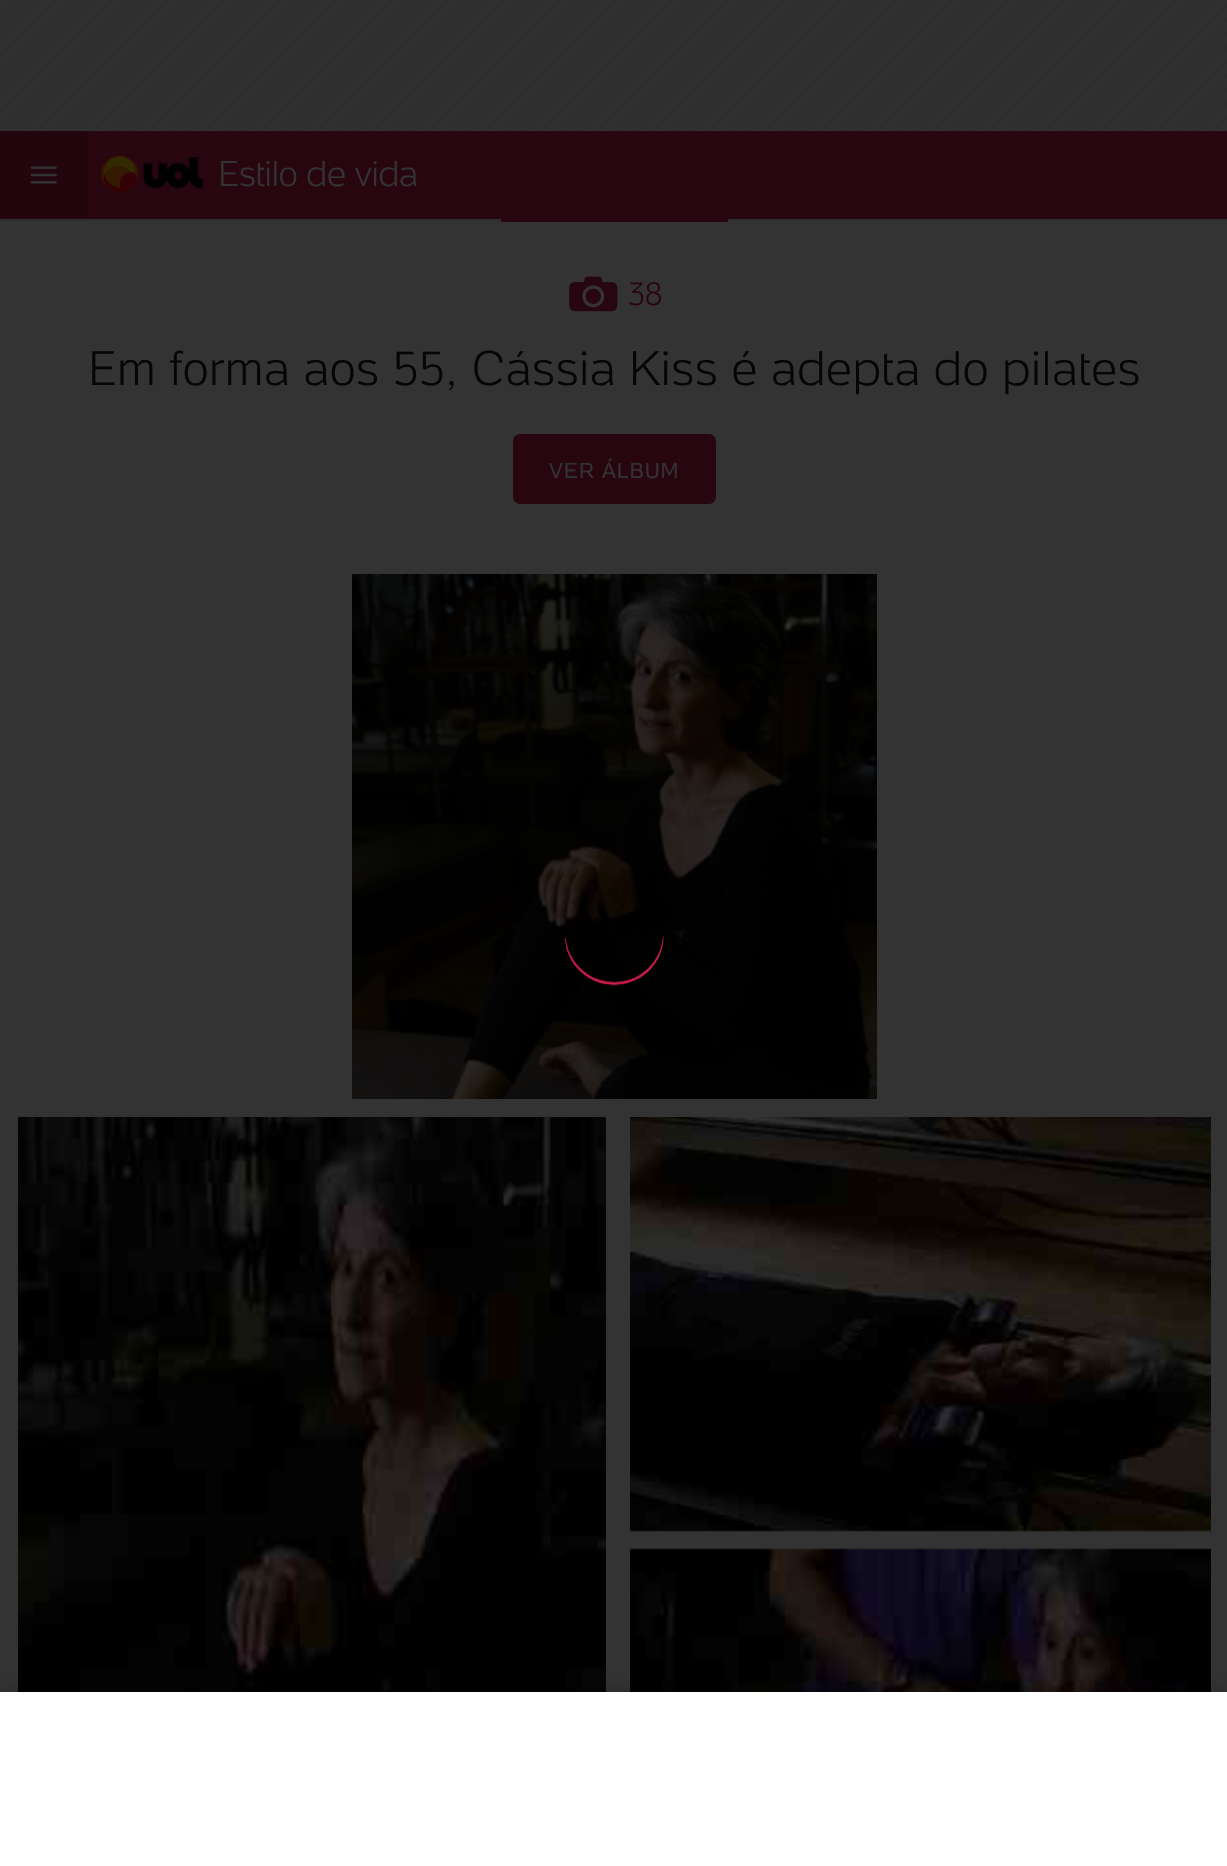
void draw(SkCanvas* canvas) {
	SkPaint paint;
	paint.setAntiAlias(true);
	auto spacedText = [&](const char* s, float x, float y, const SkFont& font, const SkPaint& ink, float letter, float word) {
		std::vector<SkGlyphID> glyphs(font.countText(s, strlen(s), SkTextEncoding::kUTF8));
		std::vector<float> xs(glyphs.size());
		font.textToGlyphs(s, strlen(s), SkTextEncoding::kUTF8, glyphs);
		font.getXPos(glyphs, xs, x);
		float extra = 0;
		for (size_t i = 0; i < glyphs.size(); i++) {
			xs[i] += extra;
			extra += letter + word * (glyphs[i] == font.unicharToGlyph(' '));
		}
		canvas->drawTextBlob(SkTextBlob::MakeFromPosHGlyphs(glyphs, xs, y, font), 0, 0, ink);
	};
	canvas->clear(0xff333333);
	paint.setColor(0xff303030);
	canvas->drawRect(SkRect::MakeXYWH(0, 0, 1227, 131), paint);
	paint.setColor(0xff28060f);
	canvas->drawRect(SkRect::MakeXYWH(0, 131, 1227, 88), paint);
	paint.setColor(0xff22050d);
	canvas->drawRect(SkRect::MakeXYWH(0, 131, 88, 86), paint);
	canvas->drawImageRect(SkImages::DeferredFromEncodedData(SkData::MakeFromFileName("img1.png")), SkRect::MakeXYWH(0, 0, 1227, 132), SkSamplingOptions());
	canvas->drawImageRect(SkImages::DeferredFromEncodedData(SkData::MakeFromFileName("img2.png")), SkRect::MakeXYWH(30, 166, 27, 18), SkSamplingOptions());
	canvas->drawImageRect(SkImages::DeferredFromEncodedData(SkData::MakeFromFileName("img3.png")), SkRect::MakeXYWH(101, 155, 103, 38), SkSamplingOptions());
	SkFont f1(fontMgr->matchFamilyStyle("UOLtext", SkFontStyle(300, SkFontStyle::kNormal_Width, SkFontStyle::kUpright_Slant)), 35);
	f1.setSubpixel(true);
	paint.setColor(0xff333333);
	spacedText("Estilo de vida", 218, 186, f1, paint, -0.75, 0);
	paint.setColor(0xff2e2e2e);
	canvas->drawRect(SkRect::MakeXYWH(0, 219, 1227, 2), paint);
	paint.setColor(0xff28060f);
	canvas->drawRect(SkRect::MakeXYWH(501, 219, 227, 3), paint);
	canvas->drawImageRect(SkImages::DeferredFromEncodedData(SkData::MakeFromFileName("img4.png")), SkRect::MakeXYWH(569, 276, 49, 36), SkSamplingOptions());
	SkFont f2(fontMgr->matchFamilyStyle("UOLtext", SkFontStyle(300, SkFontStyle::kNormal_Width, SkFontStyle::kUpright_Slant)), 32);
	f2.setSubpixel(true);
	canvas->drawString("38", 627, 305, f2, paint);
	SkFont f3(fontMgr->matchFamilyStyle("UOLtext", SkFontStyle(300, SkFontStyle::kNormal_Width, SkFontStyle::kUpright_Slant)), 47.25);
	f3.setSubpixel(true);
	paint.setColor(0xff050505);
	canvas->drawString("Em forma aos 55, Cássia Kiss é adepta do pilates", 88, 385, f3, paint);
	paint.setColor(0xff28060f);
	canvas->drawRoundRect(SkRect::MakeXYWH(514, 435, 201, 68), 6, 6, paint);
	paint.setStroke(true);
	paint.setStrokeWidth(2);
	canvas->drawRoundRect(SkRect::MakeXYWH(514, 435, 201, 68), 6, 6, paint);
	SkFont f4(fontMgr->matchFamilyStyle("UOLtext", SkFontStyle::Normal()), 21);
	f4.setSubpixel(true);
	paint.setStroke(false);
	paint.setColor(0xff333333);
	spacedText("VER ÁLBUM", 549, 478, f4, paint, 1, 0);
	canvas->drawImageRect(SkImages::DeferredFromEncodedData(SkData::MakeFromFileName("img5.png")), SkRect::MakeXYWH(352, 574, 525, 525), SkSamplingOptions());
	canvas->drawImageRect(SkImages::DeferredFromEncodedData(SkData::MakeFromFileName("img6.png")), SkRect::MakeXYWH(18, 1117, 588, 575), SkSamplingOptions());
	canvas->drawImageRect(SkImages::DeferredFromEncodedData(SkData::MakeFromFileName("img7.png")), SkRect::MakeXYWH(630, 1117, 581, 415), SkSamplingOptions());
	canvas->drawImageRect(SkImages::DeferredFromEncodedData(SkData::MakeFromFileName("img8.png")), SkRect::MakeXYWH(630, 1548, 581, 144), SkSamplingOptions());
	canvas->drawImageRect(SkImages::DeferredFromEncodedData(SkData::MakeFromFileName("img9.png")), SkRect::MakeXYWH(565, 935, 99, 51), SkSamplingOptions());
	paint.setColor(0x33000000);
	paint.setMaskFilter(SkMaskFilter::MakeBlur(kNormal_SkBlurStyle, 9));
	canvas->drawRect(SkRect::MakeXYWH(0, 1692, 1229, 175), paint);
	paint.setMaskFilter(nullptr);
	paint.setColor(0xffffffff);
	canvas->drawRect(SkRect::MakeXYWH(0, 1692, 1227, 174), paint);
}
